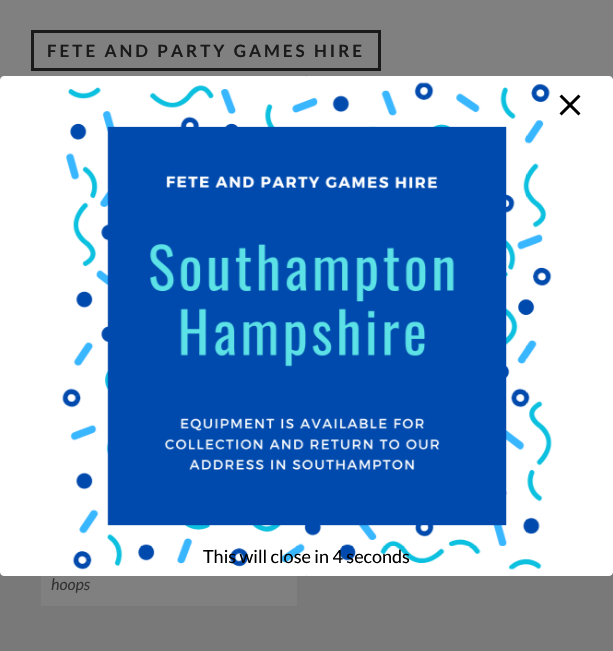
void draw(SkCanvas* canvas) {
	SkPaint paint;
	paint.setAntiAlias(true);
	auto spacedText = [&](const char* s, float x, float y, const SkFont& font, const SkPaint& ink, float letter, float word) {
		std::vector<SkGlyphID> glyphs(font.countText(s, strlen(s), SkTextEncoding::kUTF8));
		std::vector<float> xs(glyphs.size());
		font.textToGlyphs(s, strlen(s), SkTextEncoding::kUTF8, glyphs);
		font.getXPos(glyphs, xs, x);
		float extra = 0;
		for (size_t i = 0; i < glyphs.size(); i++) {
			xs[i] += extra;
			extra += letter + word * (glyphs[i] == font.unicharToGlyph(' '));
		}
		canvas->drawTextBlob(SkTextBlob::MakeFromPosHGlyphs(glyphs, xs, y, font), 0, 0, ink);
	};
	canvas->clear(0xff797979);
	paint.setColor(0xff808080);
	canvas->drawRect(SkRect::MakeXYWH(0, 0, 613, 80), paint);
	paint.setStroke(true);
	paint.setStrokeWidth(3);
	paint.setColor(0xff1a1a1a);
	canvas->drawRect(SkRect::MakeXYWH(32.5, 31.5, 347, 38), paint);
	SkFont f1(fontMgr->matchFamilyStyle("Lato", SkFontStyle::Bold()), 17);
	f1.setSubpixel(true);
	paint.setStroke(false);
	spacedText("FETE AND PARTY GAMES HIRE", 47, 57, f1, paint, 3, 0);
	paint.setColor(0xffffffff);
	canvas->drawRoundRect(SkRect::MakeXYWH(0.5, 76.5, 612, 499), 3.5, 3.5, paint);
	paint.setStroke(true);
	paint.setStrokeWidth(1);
	canvas->drawRoundRect(SkRect::MakeXYWH(0.5, 76.5, 612, 499), 3.5, 3.5, paint);
	canvas->drawImageRect(SkImages::DeferredFromEncodedData(SkData::MakeFromFileName("img1.png")), SkRect::MakeXYWH(62, 82, 491, 488), SkSamplingOptions());
	canvas->drawImageRect(SkImages::DeferredFromEncodedData(SkData::MakeFromFileName("img2.png")), SkRect::MakeXYWH(559, 94, 22, 22), SkSamplingOptions());
	SkFont f2(fontMgr->matchFamilyStyle("Lato", SkFontStyle::Normal()), 18);
	f2.setSubpixel(true);
	paint.setStroke(false);
	paint.setColor(0xff000000);
	canvas->drawString("This will close in 4 seconds", 203, 563, f2, paint);
	paint.setColor(0xff808080);
	canvas->drawRect(SkRect::MakeXYWH(41, 576, 256, 30), paint);
	SkFont f3(fontMgr->matchFamilyStyle("Lato", SkFontStyle::Italic()), 16);
	f3.setSubpixel(true);
	paint.setColor(0xff333333);
	canvas->drawString("hoops", 51, 590, f3, paint);
}
